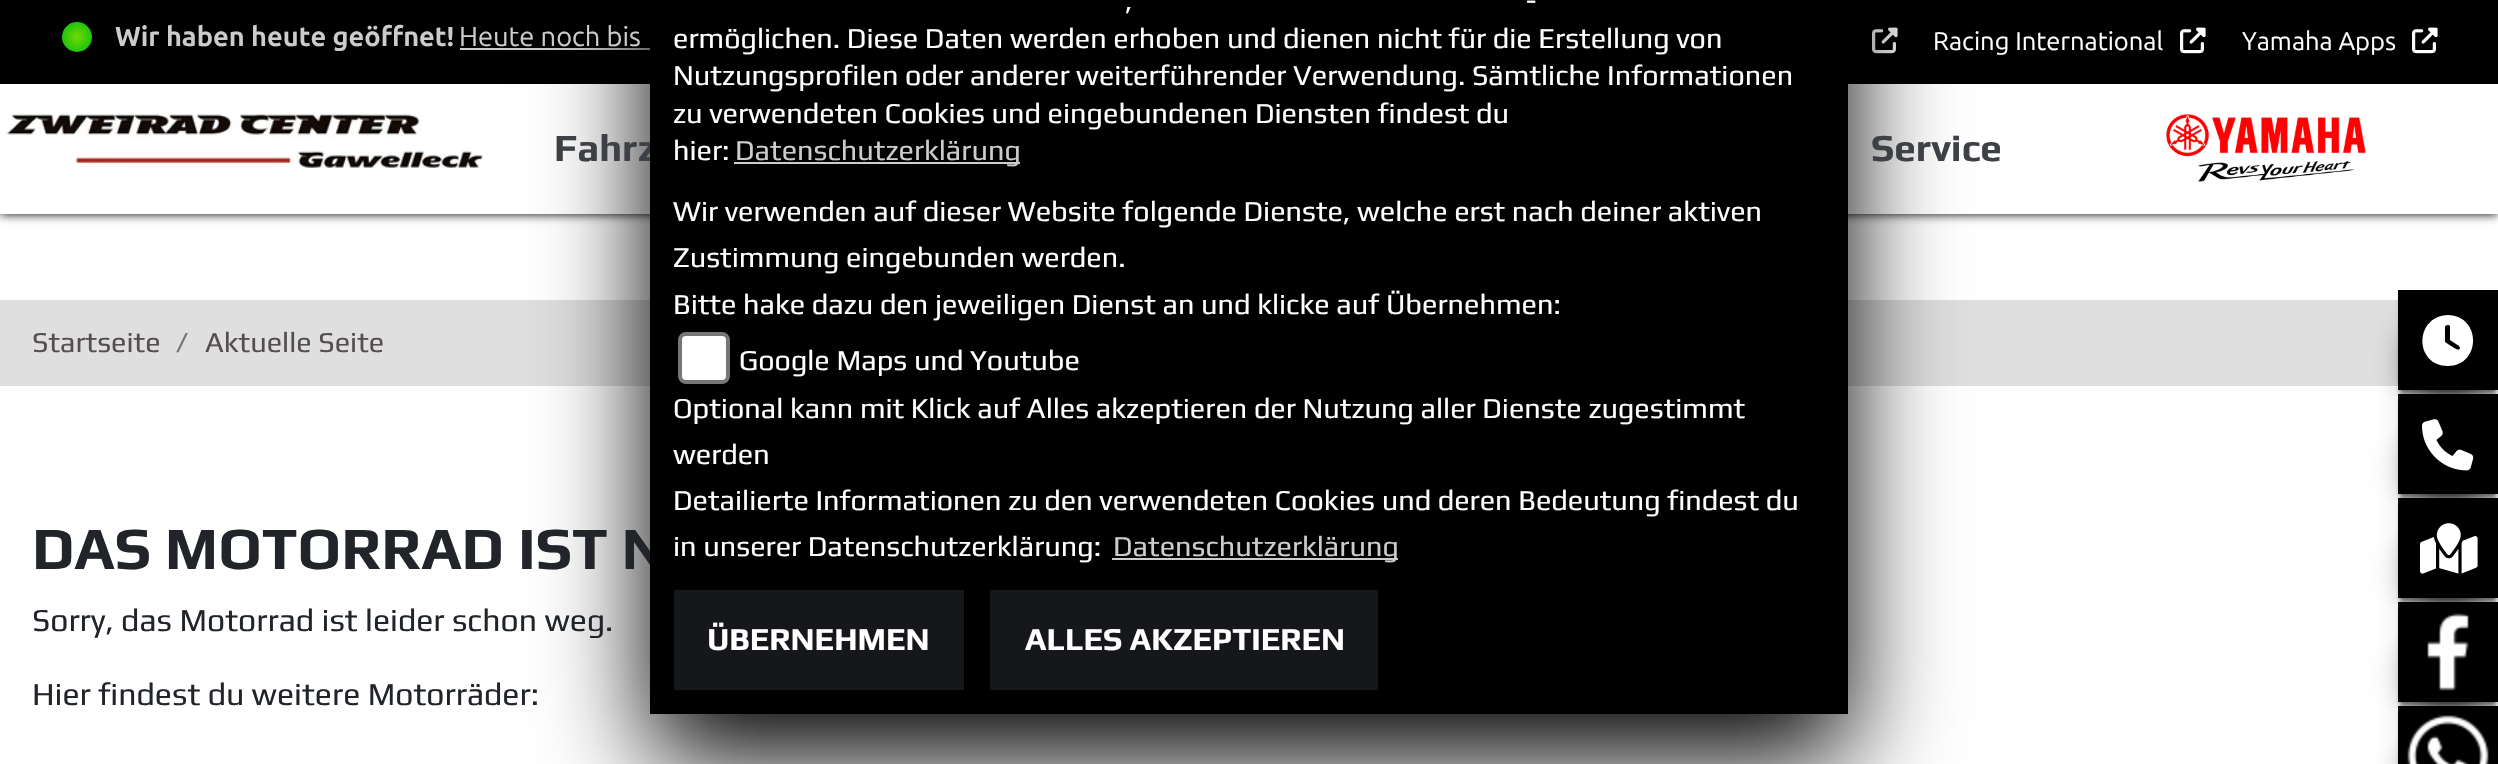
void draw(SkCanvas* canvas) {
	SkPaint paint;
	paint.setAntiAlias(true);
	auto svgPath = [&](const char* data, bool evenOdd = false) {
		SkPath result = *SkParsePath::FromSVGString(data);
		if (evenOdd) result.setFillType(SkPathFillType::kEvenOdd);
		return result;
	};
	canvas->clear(0xffffffff);
	paint.setColor(0xff000000);
	paint.setMaskFilter(SkMaskFilter::MakeBlur(kNormal_SkBlurStyle, 5));
	canvas->drawRect(SkRect::MakeXYWH(0, 0, 2498, 214), paint);
	paint.setMaskFilter(nullptr);
	canvas->drawRect(SkRect::MakeXYWH(0, 0, 2498, 84), paint);
	paint.setColor(0xffcccccc);
	canvas->drawRect(SkRect::MakeXYWH(460, 48, 190, 2), paint);
	canvas->drawImageRect(SkImages::DeferredFromEncodedData(SkData::MakeFromFileName("img1.png")), SkRect::MakeXYWH(1872, 27, 26, 27), SkSamplingOptions());
	paint.setColor(0xffffffff);
	canvas->drawRect(SkRect::MakeXYWH(0, 84, 2498, 130), paint);
	paint.setColor(0xffdfdfdf);
	canvas->drawRect(SkRect::MakeXYWH(0, 300, 2398, 86), paint);
	paint.setColor(0xff000000);
	paint.setMaskFilter(SkMaskFilter::MakeBlur(kNormal_SkBlurStyle, 50));
	canvas->drawRect(SkRect::MakeXYWH(650, -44, 1198, 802), paint);
	paint.setMaskFilter(nullptr);
	SkFont f1(fontMgr->matchFamilyStyle("Play", SkFontStyle::Bold()), 38.5);
	f1.setSubpixel(true);
	paint.setColor(0xff3d4045);
	canvas->drawString("Fahrz", 554, 161, f1, paint);
	SkFont f2(fontMgr->matchFamilyStyle("Play", SkFontStyle::Bold()), 60);
	f2.setSubpixel(true);
	paint.setColor(0xff212529);
	canvas->drawString("DAS MOTORRAD IST N", 32, 569, f2, paint);
	paint.setColor(0xff000000);
	canvas->drawRect(SkRect::MakeXYWH(650, 84, 1198, 630), paint);
	SkFont f3(fontMgr->matchFamilyStyle("Play", SkFontStyle::Normal()), 28.8);
	f3.setSubpixel(true);
	paint.setColor(0xffffffff);
	canvas->drawString("-", 1526, 10, f3, paint);
	canvas->drawString(",", 1125, 10, f3, paint);
	canvas->drawString("ermöglichen. Diese Daten werden erhoben und dienen nicht für die Erstellung von", 673, 48, f3, paint);
	canvas->drawString("Nutzungsprofilen oder anderer weiterführender Verwendung. Sämtliche Informationen", 673, 85, f3, paint);
	canvas->drawString("zu verwendeten Cookies und eingebundenen Diensten findest du", 673, 123, f3, paint);
	canvas->drawString("hier:", 673, 160, f3, paint);
	paint.setColor(0xffcccccc);
	canvas->drawRect(SkRect::MakeXYWH(734, 162, 286, 2), paint);
	canvas->drawString("Datenschutzerklärung", 735, 160, f3, paint);
	paint.setColor(0xffffffff);
	canvas->drawString("Wir verwenden auf dieser Website folgende Dienste, welche erst nach deiner aktiven", 673, 221, f3, paint);
	canvas->drawString("Zustimmung eingebunden werden.", 673, 267, f3, paint);
	canvas->drawString("Bitte hake dazu den jeweiligen Dienst an und klicke auf Übernehmen:", 673, 314, f3, paint);
	canvas->drawRoundRect(SkRect::MakeXYWH(680, 334, 48, 48), 6, 6, paint);
	paint.setStroke(true);
	paint.setStrokeWidth(4);
	paint.setColor(0xff767676);
	canvas->drawRoundRect(SkRect::MakeXYWH(680, 334, 48, 48), 6, 6, paint);
	paint.setStroke(false);
	paint.setColor(0xffffffff);
	canvas->drawString("Google Maps und Youtube", 739, 370, f3, paint);
	canvas->drawString("Optional kann mit Klick auf Alles akzeptieren der Nutzung aller Dienste zugestimmt", 673, 418, f3, paint);
	canvas->drawString("werden", 673, 464, f3, paint);
	canvas->drawString("Detailierte Informationen zu den verwendeten Cookies und deren Bedeutung findest du", 673, 510, f3, paint);
	canvas->drawString("in unserer Datenschutzerklärung:", 673, 556, f3, paint);
	paint.setColor(0xffcccccc);
	canvas->drawRect(SkRect::MakeXYWH(1112, 558, 286, 2), paint);
	canvas->drawString("Datenschutzerklärung", 1113, 556, f3, paint);
	paint.setColor(0xff16171a);
	canvas->drawRect(SkRect::MakeXYWH(674, 590, 290, 100), paint);
	SkFont f4(fontMgr->matchFamilyStyle("Play", SkFontStyle::Bold()), 32);
	f4.setSubpixel(true);
	paint.setColor(0xffffffff);
	canvas->drawString("ÜBERNEHMEN", 707, 650, f4, paint);
	paint.setColor(0xff16171a);
	canvas->drawRect(SkRect::MakeXYWH(990, 590, 388, 100), paint);
	paint.setColor(0xffffffff);
	canvas->drawString("ALLES AKZEPTIEREN", 1025, 650, f4, paint);
	{
		const SkColor colors[] = {0xff71d900, 0xff00bb12};
		const float stops[] = {0, 1};
		paint.setShader(SkGradientShader::MakeRadial({77, 37}, 21, colors, stops, 2, SkTileMode::kClamp));
		paint.setAlpha(255);
	}
	canvas->drawCircle(77, 37, 15, paint);
	SkFont f5(fontMgr->matchFamilyStyle("Ubuntu", SkFontStyle::Bold()), 27.25);
	f5.setSubpixel(true);
	paint.setShader(nullptr);
	paint.setColor(0xffcccccc);
	canvas->drawString("Wir haben heute geöffnet!", 115, 46, f5, paint);
	SkFont f6(fontMgr->matchFamilyStyle("Ubuntu", SkFontStyle::Normal()), 27.25);
	f6.setSubpixel(true);
	canvas->drawString("Heute noch bis", 459, 46, f6, paint);
	SkFont f7(fontMgr->matchFamilyStyle("Ubuntu", SkFontStyle::Normal()), 25.5);
	f7.setSubpixel(true);
	paint.setColor(0xffffffff);
	canvas->drawString("Racing International", 1933, 50, f7, paint);
	canvas->drawImageRect(SkImages::DeferredFromEncodedData(SkData::MakeFromFileName("img1.png")), SkRect::MakeXYWH(2180, 27, 26, 27), SkSamplingOptions());
	canvas->drawString("Yamaha Apps", 2242, 50, f7, paint);
	canvas->drawImageRect(SkImages::DeferredFromEncodedData(SkData::MakeFromFileName("img1.png")), SkRect::MakeXYWH(2412, 27, 26, 27), SkSamplingOptions());
	canvas->drawImageRect(SkImages::DeferredFromEncodedData(SkData::MakeFromFileName("img2.png")), SkRect::MakeXYWH(5, 114, 478, 55), SkSamplingOptions());
	paint.setColor(0xff3d4045);
	canvas->drawString("Service", 1871, 161, f1, paint);
	canvas->drawImageRect(SkImages::DeferredFromEncodedData(SkData::MakeFromFileName("img3.png")), SkRect::MakeXYWH(2166, 114, 200, 68), SkSamplingOptions());
	paint.setColor(0xff554e4e);
	canvas->drawString("Startseite", 32, 352, f3, paint);
	paint.setColor(0xff6c757d);
	canvas->drawString("/", 176, 352, f3, paint);
	paint.setColor(0xff554e4e);
	canvas->drawString("Aktuelle Seite", 205, 352, f3, paint);
	paint.setColor(0xff000000);
	paint.setMaskFilter(SkMaskFilter::MakeBlur(kNormal_SkBlurStyle, 20));
	canvas->drawRect(SkRect::MakeXYWH(2418, 334, 60, 60), paint);
	paint.setMaskFilter(nullptr);
	paint.setColor(0x80000000);
	paint.setMaskFilter(SkMaskFilter::MakeBlur(kNormal_SkBlurStyle, 2));
	canvas->drawRect(SkRect::MakeXYWH(2400, 298, 96, 96), paint);
	paint.setMaskFilter(nullptr);
	paint.setColor(0xff000000);
	canvas->drawRect(SkRect::MakeXYWH(2398, 290, 100, 100), paint);
	paint.setColor(0xffffffff);
	canvas->drawPath(svgPath("M2448 315C2482 316 2481 366 2448 366C2414 366 2414 316 2448 315ZM2445 327V342L2451 346C2453 347 2459 352 2460 348L2459 346L2450 340V326C2449 324 2445 325 2445 327Z"), paint);
	paint.setColor(0xff000000);
	paint.setMaskFilter(SkMaskFilter::MakeBlur(kNormal_SkBlurStyle, 20));
	canvas->drawRect(SkRect::MakeXYWH(2418, 438, 60, 60), paint);
	paint.setMaskFilter(nullptr);
	paint.setColor(0x80000000);
	paint.setMaskFilter(SkMaskFilter::MakeBlur(kNormal_SkBlurStyle, 2));
	canvas->drawRect(SkRect::MakeXYWH(2400, 402, 96, 96), paint);
	paint.setMaskFilter(nullptr);
	paint.setColor(0xff000000);
	canvas->drawRect(SkRect::MakeXYWH(2398, 394, 100, 100), paint);
	canvas->drawImageRect(SkImages::DeferredFromEncodedData(SkData::MakeFromFileName("img4.png")), SkRect::MakeXYWH(2422, 419, 52, 52), SkSamplingOptions());
	paint.setMaskFilter(SkMaskFilter::MakeBlur(kNormal_SkBlurStyle, 20));
	canvas->drawRect(SkRect::MakeXYWH(2418, 542, 60, 60), paint);
	paint.setMaskFilter(nullptr);
	paint.setColor(0x80000000);
	paint.setMaskFilter(SkMaskFilter::MakeBlur(kNormal_SkBlurStyle, 2));
	canvas->drawRect(SkRect::MakeXYWH(2400, 506, 96, 96), paint);
	paint.setMaskFilter(nullptr);
	paint.setColor(0xff000000);
	canvas->drawRect(SkRect::MakeXYWH(2398, 498, 100, 100), paint);
	canvas->drawImageRect(SkImages::DeferredFromEncodedData(SkData::MakeFromFileName("img5.png")), SkRect::MakeXYWH(2420, 523, 58, 51), SkSamplingOptions());
	paint.setMaskFilter(SkMaskFilter::MakeBlur(kNormal_SkBlurStyle, 20));
	canvas->drawRect(SkRect::MakeXYWH(2418, 646, 60, 60), paint);
	paint.setMaskFilter(nullptr);
	paint.setColor(0x80000000);
	paint.setMaskFilter(SkMaskFilter::MakeBlur(kNormal_SkBlurStyle, 2));
	canvas->drawRect(SkRect::MakeXYWH(2400, 610, 96, 96), paint);
	paint.setMaskFilter(nullptr);
	paint.setColor(0xff000000);
	canvas->drawRect(SkRect::MakeXYWH(2398, 602, 100, 100), paint);
	canvas->drawImageRect(SkImages::DeferredFromEncodedData(SkData::MakeFromFileName("img6.png")), SkRect::MakeXYWH(2427, 613, 42, 78), SkSamplingOptions());
	paint.setMaskFilter(SkMaskFilter::MakeBlur(kNormal_SkBlurStyle, 20));
	canvas->drawRect(SkRect::MakeXYWH(2418, 750, 60, 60), paint);
	paint.setMaskFilter(nullptr);
	paint.setColor(0x80000000);
	paint.setMaskFilter(SkMaskFilter::MakeBlur(kNormal_SkBlurStyle, 2));
	canvas->drawRect(SkRect::MakeXYWH(2400, 714, 96, 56), paint);
	paint.setMaskFilter(nullptr);
	paint.setColor(0xff000000);
	canvas->drawRect(SkRect::MakeXYWH(2398, 706, 100, 58), paint);
	canvas->drawImageRect(SkImages::DeferredFromEncodedData(SkData::MakeFromFileName("img7.png")), SkRect::MakeXYWH(2407, 715, 82, 49), SkSamplingOptions());
	SkFont f8(fontMgr->matchFamilyStyle("Play", SkFontStyle::Normal()), 32);
	f8.setSubpixel(true);
	paint.setColor(0xff212529);
	canvas->drawString("Sorry, das Motorrad ist leider schon weg.", 32, 631, f8, paint);
	canvas->drawString("Hier findest du weitere Motorräder:", 32, 705, f8, paint);
}
